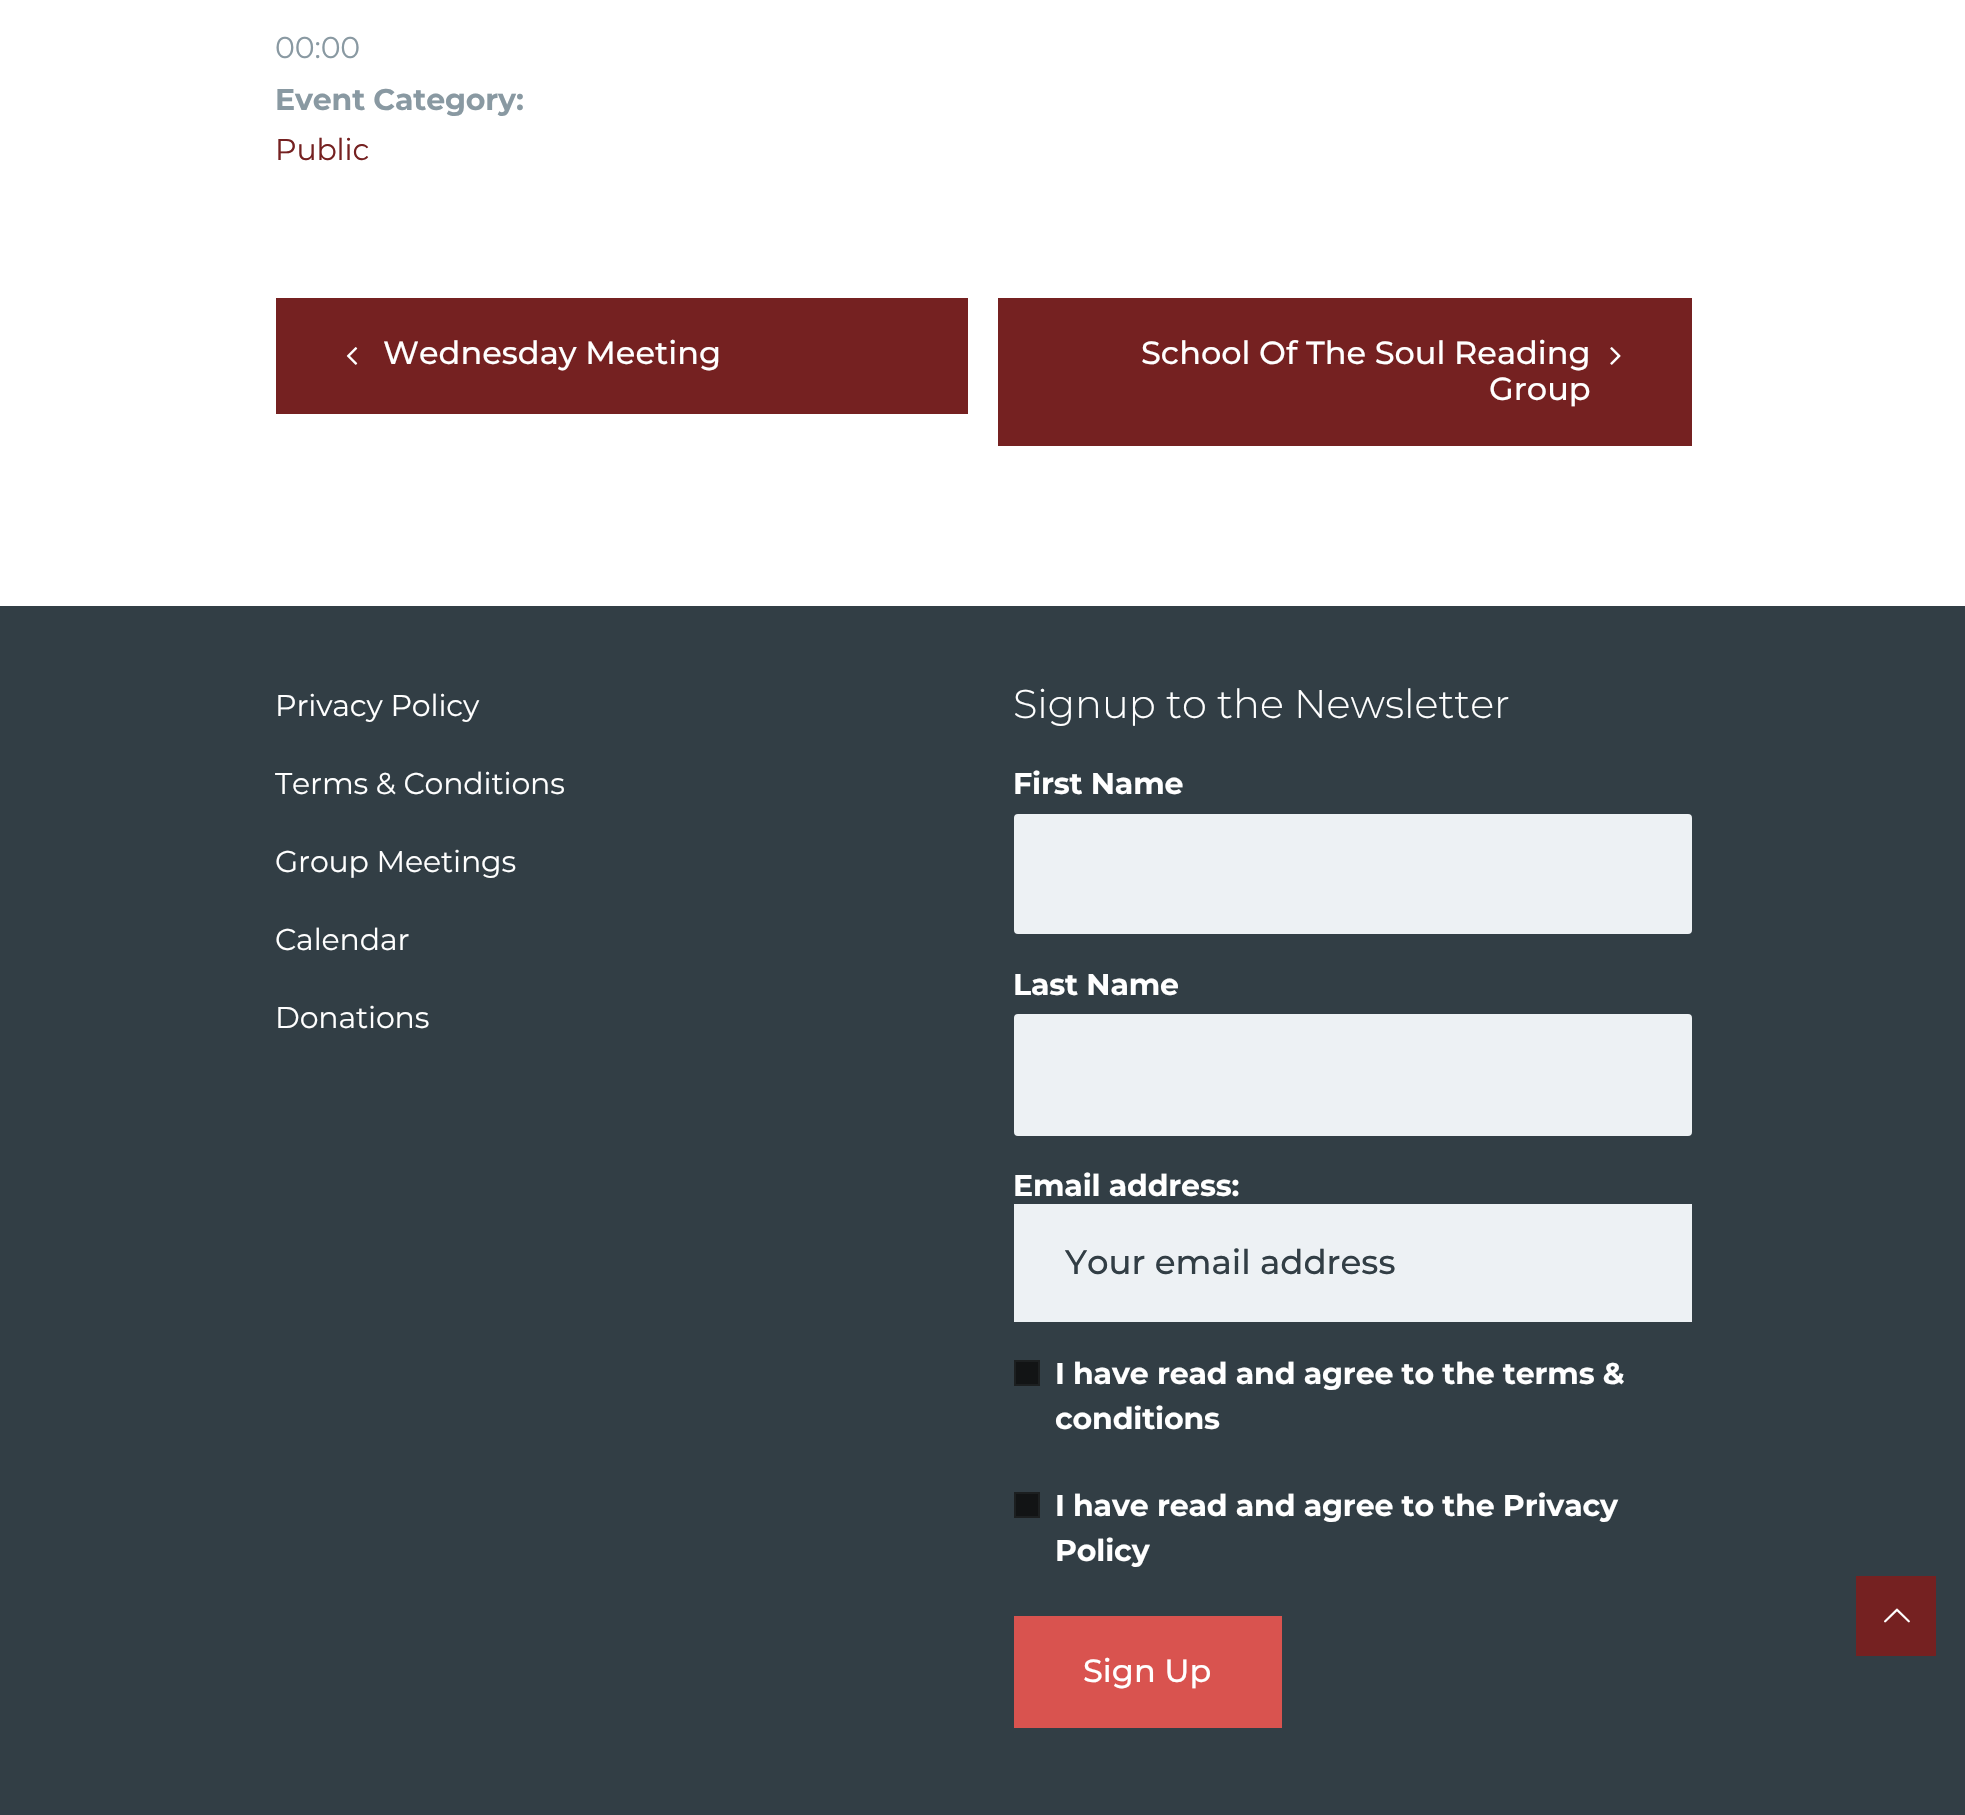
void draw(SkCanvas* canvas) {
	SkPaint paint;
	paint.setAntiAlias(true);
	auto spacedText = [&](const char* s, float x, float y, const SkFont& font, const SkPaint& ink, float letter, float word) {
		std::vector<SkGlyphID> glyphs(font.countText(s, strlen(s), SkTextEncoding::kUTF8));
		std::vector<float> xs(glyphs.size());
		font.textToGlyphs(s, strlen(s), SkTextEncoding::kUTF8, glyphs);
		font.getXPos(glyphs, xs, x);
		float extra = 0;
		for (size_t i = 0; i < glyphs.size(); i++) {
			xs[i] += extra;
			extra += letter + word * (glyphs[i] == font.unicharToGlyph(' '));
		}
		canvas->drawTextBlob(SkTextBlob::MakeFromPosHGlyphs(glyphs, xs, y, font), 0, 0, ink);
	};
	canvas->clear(0xffffffff);
	SkFont f1(fontMgr->matchFamilyStyle("Montserrat", SkFontStyle::Normal()), 30);
	f1.setSubpixel(true);
	paint.setColor(0xff8999a2);
	spacedText("00:00", 275, 58, f1, paint, -0.15, 0);
	SkFont f2(fontMgr->matchFamilyStyle("Montserrat", SkFontStyle::Bold()), 30);
	f2.setSubpixel(true);
	spacedText("Event Category:", 275, 110, f2, paint, -0.15, 0);
	paint.setColor(0xff752121);
	spacedText("Public", 275, 160, f1, paint, -0.15, 0);
	canvas->drawRect(SkRect::MakeXYWH(276, 298, 692, 116), paint);
	canvas->drawImageRect(SkImages::DeferredFromEncodedData(SkData::MakeFromFileName("img1.png")), SkRect::MakeXYWH(346, 347, 12, 18), SkSamplingOptions());
	SkFont f3(fontMgr->matchFamilyStyle("Montserrat", SkFontStyle(500, SkFontStyle::kNormal_Width, SkFontStyle::kUpright_Slant)), 32);
	f3.setSubpixel(true);
	paint.setColor(0xffffffff);
	canvas->drawString("Wednesday Meeting", 383, 364, f3, paint);
	paint.setColor(0xff752121);
	canvas->drawRect(SkRect::MakeXYWH(998, 298, 694, 148), paint);
	paint.setColor(0xffffffff);
	canvas->drawString("School Of The Soul Reading", 1141, 364, f3, paint);
	canvas->drawImageRect(SkImages::DeferredFromEncodedData(SkData::MakeFromFileName("img2.png")), SkRect::MakeXYWH(1610, 347, 11, 18), SkSamplingOptions());
	canvas->drawString("Group", 1489, 400, f3, paint);
	paint.setColor(0xff323e45);
	canvas->drawRect(SkRect::MakeXYWH(0, 606, 1965, 1209), paint);
	paint.setColor(0xffffffff);
	spacedText("Privacy Policy", 275, 716, f1, paint, -0.15, 0);
	spacedText("Terms & Conditions", 275, 794, f1, paint, -0.15, 0);
	spacedText("Group Meetings", 275, 872, f1, paint, -0.15, 0);
	spacedText("Calendar", 275, 950, f1, paint, -0.15, 0);
	spacedText("Donations", 275, 1028, f1, paint, -0.15, 0);
	SkFont f4(fontMgr->matchFamilyStyle("Montserrat", SkFontStyle(300, SkFontStyle::kNormal_Width, SkFontStyle::kUpright_Slant)), 40);
	f4.setSubpixel(true);
	canvas->drawString("Signup to the Newsletter", 1013, 718, f4, paint);
	spacedText("First Name", 1013, 794, f2, paint, -0.15, 0);
	paint.setColor(0xffedf1f4);
	canvas->drawRoundRect(SkRect::MakeXYWH(1015, 815, 676, 118), 3, 3, paint);
	paint.setStroke(true);
	paint.setStrokeWidth(2);
	canvas->drawRoundRect(SkRect::MakeXYWH(1015, 815, 676, 118), 3, 3, paint);
	paint.setStroke(false);
	paint.setColor(0xffffffff);
	spacedText("Last Name", 1013, 995, f2, paint, -0.15, 0);
	paint.setColor(0xffedf1f4);
	canvas->drawRoundRect(SkRect::MakeXYWH(1015, 1015, 676, 120), 3, 3, paint);
	paint.setStroke(true);
	canvas->drawRoundRect(SkRect::MakeXYWH(1015, 1015, 676, 120), 3, 3, paint);
	paint.setStroke(false);
	paint.setColor(0xffffffff);
	spacedText("Email address:", 1013, 1196, f2, paint, -0.15, 0);
	paint.setColor(0xffedf1f4);
	canvas->drawRect(SkRect::MakeXYWH(1014, 1204, 678, 118), paint);
	SkFont f5(fontMgr->matchFamilyStyle("Montserrat", SkFontStyle(500, SkFontStyle::kNormal_Width, SkFontStyle::kUpright_Slant)), 34);
	f5.setSubpixel(true);
	paint.setColor(0xff323e45);
	canvas->drawString("Your email address", 1065, 1274, f5, paint);
	paint.setColor(0xff121415);
	canvas->drawRect(SkRect::MakeXYWH(1015, 1361, 24, 24), paint);
	paint.setStroke(true);
	paint.setColor(0xff1c1f20);
	canvas->drawRect(SkRect::MakeXYWH(1015, 1361, 24, 24), paint);
	paint.setStroke(false);
	paint.setColor(0xffffffff);
	spacedText("I have read and agree to the terms &", 1055, 1384, f2, paint, -0.15, 0);
	spacedText("conditions", 1055, 1429, f2, paint, -0.15, 0);
	paint.setColor(0xff121415);
	canvas->drawRect(SkRect::MakeXYWH(1015, 1493, 24, 24), paint);
	paint.setStroke(true);
	paint.setColor(0xff1c1f20);
	canvas->drawRect(SkRect::MakeXYWH(1015, 1493, 24, 24), paint);
	paint.setStroke(false);
	paint.setColor(0xffffffff);
	spacedText("I have read and agree to the Privacy", 1055, 1516, f2, paint, -0.15, 0);
	spacedText("Policy", 1055, 1561, f2, paint, -0.15, 0);
	paint.setColor(0xffd9534f);
	canvas->drawRect(SkRect::MakeXYWH(1014, 1616, 268, 112), paint);
	paint.setColor(0xffffffff);
	canvas->drawString("Sign Up", 1083, 1682, f3, paint);
	paint.setColor(0xff752121);
	canvas->drawRect(SkRect::MakeXYWH(1856, 1576, 80, 80), paint);
	canvas->drawImageRect(SkImages::DeferredFromEncodedData(SkData::MakeFromFileName("img3.png")), SkRect::MakeXYWH(1884, 1608, 26, 15), SkSamplingOptions());
}
